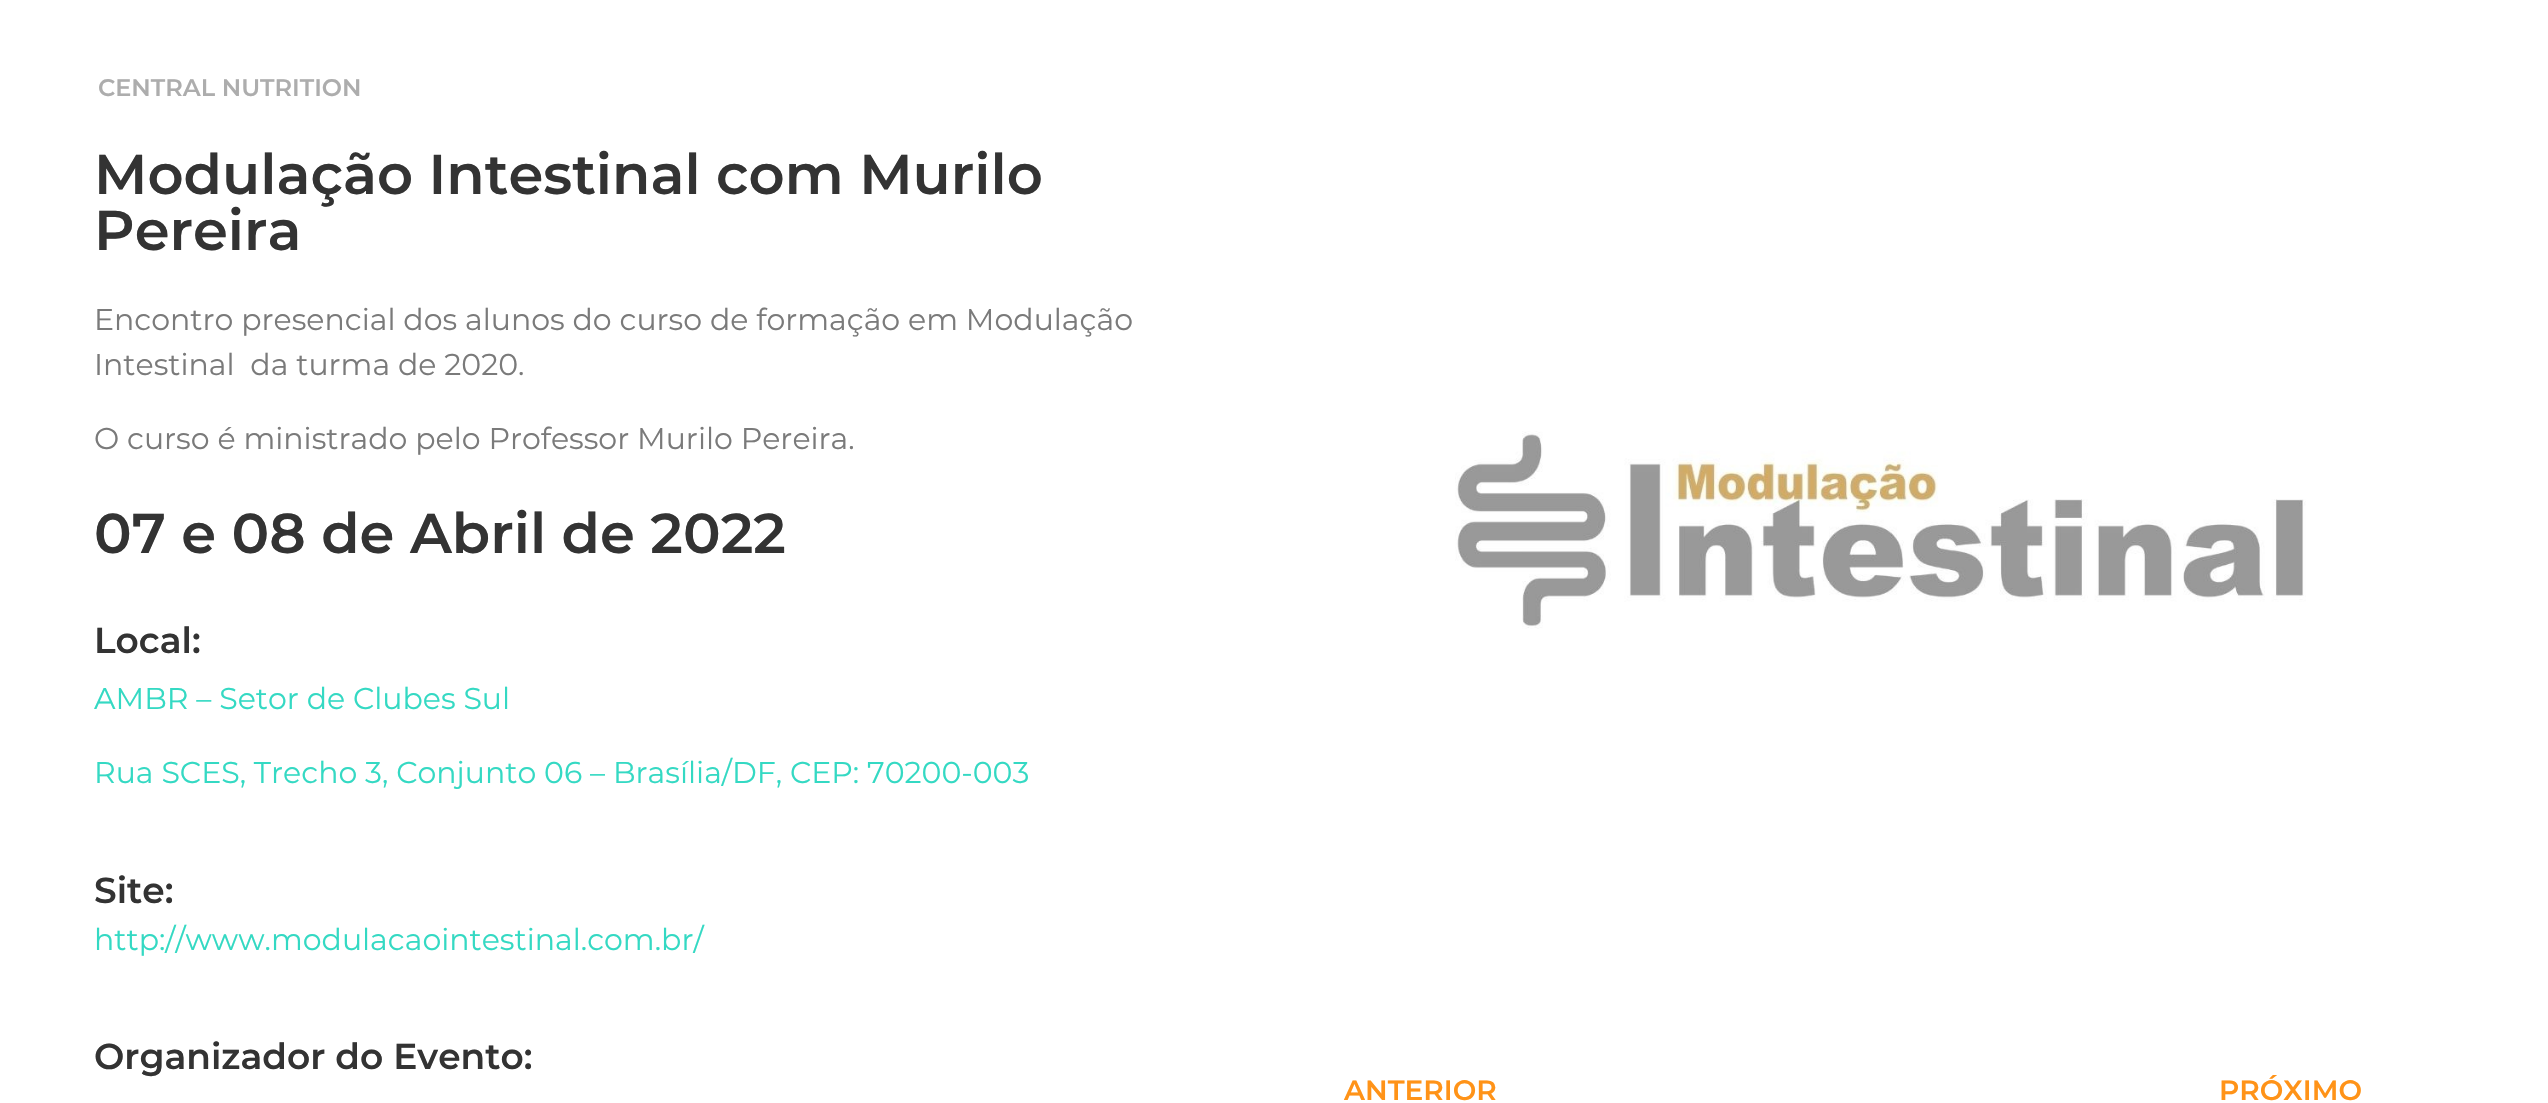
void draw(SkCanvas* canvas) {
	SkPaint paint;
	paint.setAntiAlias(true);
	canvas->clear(0xffffffff);
	SkFont f1(fontMgr->matchFamilyStyle("Montserrat", SkFontStyle(600, SkFontStyle::kNormal_Width, SkFontStyle::kUpright_Slant)), 24);
	f1.setSubpixel(true);
	paint.setColor(0xffadadad);
	canvas->drawString("CENTRAL NUTRITION", 98, 96, f1, paint);
	SkFont f2(fontMgr->matchFamilyStyle("Montserrat", SkFontStyle(600, SkFontStyle::kNormal_Width, SkFontStyle::kUpright_Slant)), 56);
	f2.setSubpixel(true);
	paint.setColor(0xff333333);
	canvas->drawString("Modulação Intestinal com Murilo", 94, 194, f2, paint);
	canvas->drawString("Pereira", 94, 250, f2, paint);
	SkFont f3(fontMgr->matchFamilyStyle("Montserrat", SkFontStyle::Normal()), 30);
	f3.setSubpixel(true);
	paint.setColor(0xff7a7a7a);
	canvas->drawString("Encontro presencial dos alunos do curso de formação em Modulação", 94, 330, f3, paint);
	canvas->drawString("Intestinal  da turma de 2020.", 94, 375, f3, paint);
	canvas->drawString("O curso é ministrado pelo Professor Murilo Pereira.", 94, 449, f3, paint);
	paint.setColor(0xff333333);
	canvas->drawString("07 e 08 de Abril de 2022", 94, 553, f2, paint);
	SkFont f4(fontMgr->matchFamilyStyle("Montserrat", SkFontStyle(600, SkFontStyle::kNormal_Width, SkFontStyle::kUpright_Slant)), 36);
	f4.setSubpixel(true);
	canvas->drawString("Local:", 94, 653, f4, paint);
	paint.setColor(0xff34d9c3);
	canvas->drawString("AMBR – Setor de Clubes Sul", 94, 709, f3, paint);
	canvas->drawString("Rua SCES, Trecho 3, Conjunto 06 – Brasília/DF, CEP: 70200-003", 94, 783, f3, paint);
	paint.setColor(0xff333333);
	canvas->drawString("Site:", 94, 903, f4, paint);
	paint.setColor(0xff34d9c3);
	canvas->drawString("http://www.modulacaointestinal.com.br/", 94, 950, f3, paint);
	paint.setColor(0xff333333);
	canvas->drawString("Organizador do Evento:", 94, 1069, f4, paint);
	canvas->drawImageRect(SkImages::DeferredFromEncodedData(SkData::MakeFromFileName("img1.png")), SkRect::MakeXYWH(1455, 431, 851, 198), SkSamplingOptions());
	SkFont f5(fontMgr->matchFamilyStyle("Montserrat", SkFontStyle(600, SkFontStyle::kNormal_Width, SkFontStyle::kUpright_Slant)), 28);
	f5.setSubpixel(true);
	paint.setColor(0xffff9318);
	canvas->drawString("ANTERIOR", 1344, 1100, f5, paint);
	canvas->drawString("PRÓXIMO", 2219, 1100, f5, paint);
}
